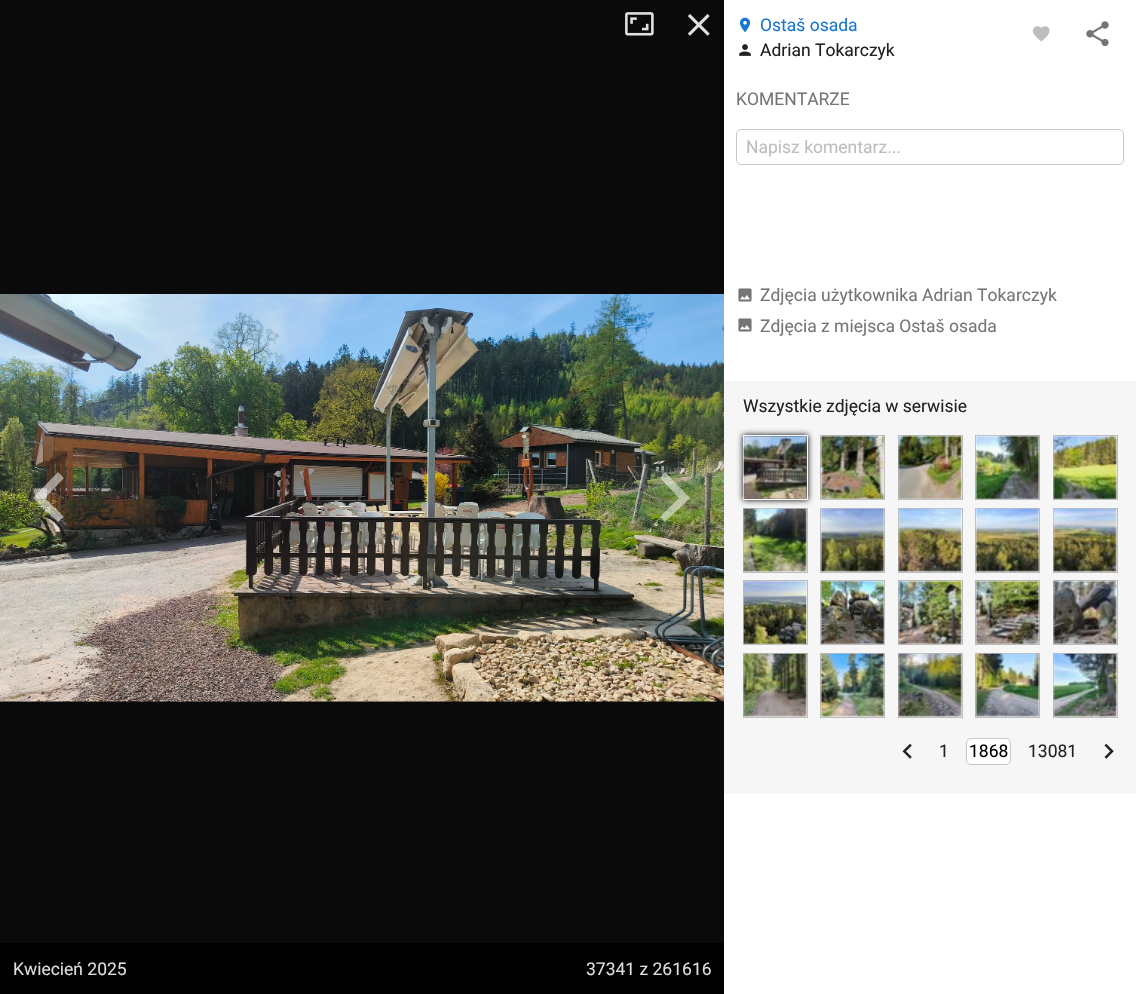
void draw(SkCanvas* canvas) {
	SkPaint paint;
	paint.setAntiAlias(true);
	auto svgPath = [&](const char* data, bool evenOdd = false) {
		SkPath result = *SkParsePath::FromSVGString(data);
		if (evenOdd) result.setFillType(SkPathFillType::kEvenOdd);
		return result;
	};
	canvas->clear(0xff0a0a0a);
	paint.setColor(0xffffffff);
	canvas->drawRect(SkRect::MakeXYWH(724, 0, 412, 994), paint);
	canvas->drawImageRect(SkImages::DeferredFromEncodedData(SkData::MakeFromFileName("img1.png")), SkRect::MakeXYWH(739, 17, 12, 16), SkSamplingOptions());
	SkFont f1(fontMgr->matchFamilyStyle("Roboto", SkFontStyle::Normal()), 17.5);
	f1.setSubpixel(true);
	paint.setColor(0xff1976d2);
	canvas->drawString("Ostaš osada", 760, 31, f1, paint);
	canvas->drawImageRect(SkImages::DeferredFromEncodedData(SkData::MakeFromFileName("img2.png")), SkRect::MakeXYWH(739, 44, 12, 12), SkSamplingOptions());
	paint.setColor(0xff212121);
	canvas->drawString("Adrian Tokarczyk", 760, 56, f1, paint);
	canvas->drawImageRect(SkImages::DeferredFromEncodedData(SkData::MakeFromFileName("img3.png")), SkRect::MakeXYWH(1033, 26, 17, 16), SkSamplingOptions());
	canvas->drawImageRect(SkImages::DeferredFromEncodedData(SkData::MakeFromFileName("img4.png")), SkRect::MakeXYWH(1086, 21, 23, 26), SkSamplingOptions());
	paint.setColor(0xff757575);
	canvas->drawString("KOMENTARZE", 736, 105, f1, paint);
	paint.setStroke(true);
	paint.setStrokeWidth(1);
	paint.setColor(0xffc8c8c8);
	canvas->drawRoundRect(SkRect::MakeXYWH(736.5, 129.5, 387, 35), 4.5, 4.5, paint);
	paint.setStroke(false);
	paint.setColor(0xffbdbdbd);
	canvas->drawString("Napisz komentarz...", 746, 153, f1, paint);
	canvas->drawImageRect(SkImages::DeferredFromEncodedData(SkData::MakeFromFileName("img5.png")), SkRect::MakeXYWH(738, 288, 14, 14), SkSamplingOptions());
	paint.setColor(0xff757575);
	canvas->drawString("Zdjęcia użytkownika Adrian Tokarczyk", 760, 301, f1, paint);
	canvas->drawImageRect(SkImages::DeferredFromEncodedData(SkData::MakeFromFileName("img5.png")), SkRect::MakeXYWH(738, 318, 14, 14), SkSamplingOptions());
	canvas->drawString("Zdjęcia z miejsca Ostaš osada", 760, 332, f1, paint);
	paint.setColor(0xfff6f6f6);
	canvas->drawRect(SkRect::MakeXYWH(724, 381, 412, 413), paint);
	paint.setColor(0xff212121);
	canvas->drawString("Wszystkie zdjęcia w serwisie", 743, 412, f1, paint);
	paint.setColor(0xff000000);
	paint.setMaskFilter(SkMaskFilter::MakeBlur(kNormal_SkBlurStyle, 3));
	canvas->drawRect(SkRect::MakeXYWH(743, 435, 65, 65), paint);
	paint.setMaskFilter(nullptr);
	paint.setStroke(true);
	paint.setColor(0xffffffff);
	canvas->drawRect(SkRect::MakeXYWH(743.5, 435.5, 64, 64), paint);
	canvas->drawImageRect(SkImages::DeferredFromEncodedData(SkData::MakeFromFileName("img6.png")), SkRect::MakeXYWH(743, 435, 64, 64), SkSamplingOptions());
	paint.setColor(0xffbdbdbd);
	canvas->drawRect(SkRect::MakeXYWH(820.5, 435.5, 64, 64), paint);
	canvas->drawImageRect(SkImages::DeferredFromEncodedData(SkData::MakeFromFileName("img7.png")), SkRect::MakeXYWH(820, 435, 65, 64), SkSamplingOptions());
	canvas->drawRect(SkRect::MakeXYWH(898.5, 435.5, 64, 64), paint);
	canvas->drawImageRect(SkImages::DeferredFromEncodedData(SkData::MakeFromFileName("img8.png")), SkRect::MakeXYWH(898, 435, 64, 64), SkSamplingOptions());
	canvas->drawRect(SkRect::MakeXYWH(975.5, 435.5, 64, 64), paint);
	canvas->drawImageRect(SkImages::DeferredFromEncodedData(SkData::MakeFromFileName("img9.png")), SkRect::MakeXYWH(975, 435, 65, 64), SkSamplingOptions());
	canvas->drawRect(SkRect::MakeXYWH(1053.5, 435.5, 64, 64), paint);
	canvas->drawImageRect(SkImages::DeferredFromEncodedData(SkData::MakeFromFileName("img10.png")), SkRect::MakeXYWH(1053, 435, 64, 64), SkSamplingOptions());
	canvas->drawRect(SkRect::MakeXYWH(743.5, 508.5, 64, 64), paint);
	canvas->drawImageRect(SkImages::DeferredFromEncodedData(SkData::MakeFromFileName("img11.png")), SkRect::MakeXYWH(743, 508, 64, 64), SkSamplingOptions());
	canvas->drawRect(SkRect::MakeXYWH(820.5, 508.5, 64, 64), paint);
	canvas->drawImageRect(SkImages::DeferredFromEncodedData(SkData::MakeFromFileName("img12.png")), SkRect::MakeXYWH(820, 508, 65, 64), SkSamplingOptions());
	canvas->drawRect(SkRect::MakeXYWH(898.5, 508.5, 64, 64), paint);
	canvas->drawImageRect(SkImages::DeferredFromEncodedData(SkData::MakeFromFileName("img13.png")), SkRect::MakeXYWH(898, 508, 64, 64), SkSamplingOptions());
	canvas->drawRect(SkRect::MakeXYWH(975.5, 508.5, 64, 64), paint);
	canvas->drawImageRect(SkImages::DeferredFromEncodedData(SkData::MakeFromFileName("img14.png")), SkRect::MakeXYWH(975, 508, 65, 64), SkSamplingOptions());
	canvas->drawRect(SkRect::MakeXYWH(1053.5, 508.5, 64, 64), paint);
	canvas->drawImageRect(SkImages::DeferredFromEncodedData(SkData::MakeFromFileName("img15.png")), SkRect::MakeXYWH(1053, 508, 64, 64), SkSamplingOptions());
	canvas->drawRect(SkRect::MakeXYWH(743.5, 580.5, 64, 64), paint);
	canvas->drawImageRect(SkImages::DeferredFromEncodedData(SkData::MakeFromFileName("img16.png")), SkRect::MakeXYWH(743, 581, 64, 63), SkSamplingOptions());
	canvas->drawRect(SkRect::MakeXYWH(820.5, 580.5, 64, 64), paint);
	canvas->drawImageRect(SkImages::DeferredFromEncodedData(SkData::MakeFromFileName("img17.png")), SkRect::MakeXYWH(821, 581, 63, 63), SkSamplingOptions());
	canvas->drawRect(SkRect::MakeXYWH(898.5, 580.5, 64, 64), paint);
	canvas->drawImageRect(SkImages::DeferredFromEncodedData(SkData::MakeFromFileName("img18.png")), SkRect::MakeXYWH(898, 580, 64, 64), SkSamplingOptions());
	canvas->drawRect(SkRect::MakeXYWH(975.5, 580.5, 64, 64), paint);
	canvas->drawImageRect(SkImages::DeferredFromEncodedData(SkData::MakeFromFileName("img19.png")), SkRect::MakeXYWH(975, 580, 65, 64), SkSamplingOptions());
	canvas->drawRect(SkRect::MakeXYWH(1053.5, 580.5, 64, 64), paint);
	canvas->drawImageRect(SkImages::DeferredFromEncodedData(SkData::MakeFromFileName("img20.png")), SkRect::MakeXYWH(1053, 580, 64, 64), SkSamplingOptions());
	canvas->drawRect(SkRect::MakeXYWH(743.5, 653.5, 64, 64), paint);
	canvas->drawImageRect(SkImages::DeferredFromEncodedData(SkData::MakeFromFileName("img21.png")), SkRect::MakeXYWH(743, 653, 64, 64), SkSamplingOptions());
	canvas->drawRect(SkRect::MakeXYWH(820.5, 653.5, 64, 64), paint);
	canvas->drawImageRect(SkImages::DeferredFromEncodedData(SkData::MakeFromFileName("img22.png")), SkRect::MakeXYWH(820, 653, 65, 64), SkSamplingOptions());
	canvas->drawRect(SkRect::MakeXYWH(898.5, 653.5, 64, 64), paint);
	canvas->drawImageRect(SkImages::DeferredFromEncodedData(SkData::MakeFromFileName("img23.png")), SkRect::MakeXYWH(898, 653, 64, 64), SkSamplingOptions());
	canvas->drawRect(SkRect::MakeXYWH(975.5, 653.5, 64, 64), paint);
	canvas->drawImageRect(SkImages::DeferredFromEncodedData(SkData::MakeFromFileName("img24.png")), SkRect::MakeXYWH(975, 653, 65, 64), SkSamplingOptions());
	canvas->drawRect(SkRect::MakeXYWH(1053.5, 653.5, 64, 64), paint);
	canvas->drawImageRect(SkImages::DeferredFromEncodedData(SkData::MakeFromFileName("img25.png")), SkRect::MakeXYWH(1053, 653, 64, 64), SkSamplingOptions());
	canvas->drawImageRect(SkImages::DeferredFromEncodedData(SkData::MakeFromFileName("img26.png")), SkRect::MakeXYWH(902, 743, 10, 16), SkSamplingOptions());
	paint.setStroke(false);
	paint.setColor(0xff212121);
	canvas->drawString("1", 939, 757, f1, paint);
	paint.setColor(0xffffffff);
	canvas->drawRoundRect(SkRect::MakeXYWH(966.5, 738.5, 44, 26), 4.5, 4.5, paint);
	paint.setStroke(true);
	paint.setColor(0xffc8c8c8);
	canvas->drawRoundRect(SkRect::MakeXYWH(966.5, 738.5, 44, 26), 4.5, 4.5, paint);
	paint.setStroke(false);
	paint.setColor(0xff000000);
	canvas->drawString("1868", 969, 757, f1, paint);
	paint.setColor(0xff212121);
	canvas->drawString("13081", 1028, 757, f1, paint);
	canvas->drawImageRect(SkImages::DeferredFromEncodedData(SkData::MakeFromFileName("img27.png")), SkRect::MakeXYWH(1104, 743, 10, 16), SkSamplingOptions());
	canvas->drawImageRect(SkImages::DeferredFromEncodedData(SkData::MakeFromFileName("img28.png")), SkRect::MakeXYWH(625, 12, 29, 24), SkSamplingOptions());
	canvas->drawImageRect(SkImages::DeferredFromEncodedData(SkData::MakeFromFileName("img29.png")), SkRect::MakeXYWH(687, 14, 23, 22), SkSamplingOptions());
	canvas->drawImageRect(SkImages::DeferredFromEncodedData(SkData::MakeFromFileName("img30.png")), SkRect::MakeXYWH(0, 294, 724, 408), SkSamplingOptions());
	paint.setColor(0x80ffffff);
	canvas->drawPath(svgPath("M64 478L58 472L33 498L58 522L64 517L45 498Z"), paint);
	canvas->drawPath(svgPath("M665 472L660 478L679 498L660 517L665 522L690 498Z"), paint);
	paint.setColor(0xff000000);
	canvas->drawRect(SkRect::MakeXYWH(0, 943, 724, 51), paint);
	paint.setColor(0xffdedede);
	canvas->drawString("Kwiecień 2025", 13, 975, f1, paint);
	canvas->drawString("37341 z 261616", 586, 975, f1, paint);
}
